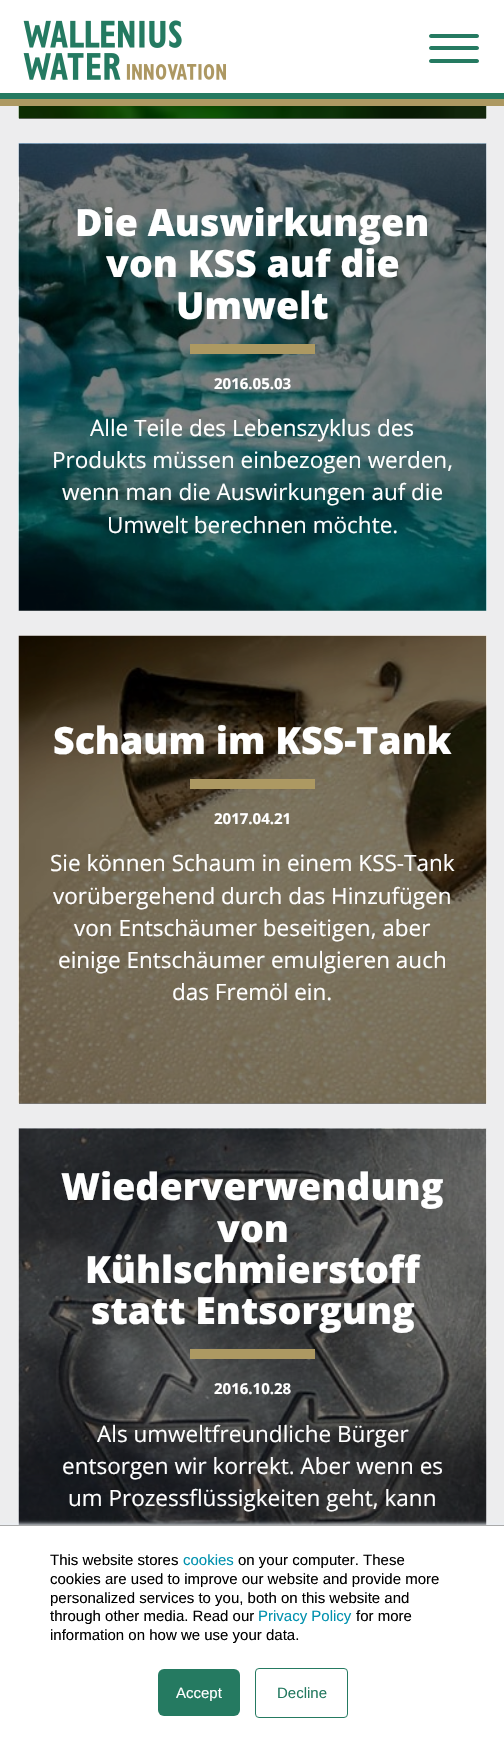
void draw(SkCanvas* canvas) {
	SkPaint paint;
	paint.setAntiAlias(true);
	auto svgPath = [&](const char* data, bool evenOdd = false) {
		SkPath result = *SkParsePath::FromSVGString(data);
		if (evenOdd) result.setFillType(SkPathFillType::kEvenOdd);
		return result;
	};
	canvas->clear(0xffededee);
	paint.setColor(0xff777777);
	canvas->drawRect(SkRect::MakeXYWH(19, 1103, 467, 1), paint);
	canvas->drawRect(SkRect::MakeXYWH(19, 118, 467, 1), paint);
	paint.setColor(0xffffffff);
	canvas->drawRect(SkRect::MakeXYWH(0, 0, 504, 93), paint);
	paint.setColor(0xff257a61);
	canvas->drawRect(SkRect::MakeXYWH(0, 93, 504, 6), paint);
	canvas->drawImageRect(SkImages::DeferredFromEncodedData(SkData::MakeFromFileName("img1.png")), SkRect::MakeXYWH(23, 20, 203, 60), SkSamplingOptions());
	canvas->drawPath(svgPath("M431 34H454V38H431C430 38 429 37 429 36C429 35 430 34 431 34Z"), paint);
	canvas->drawPath(svgPath("M454 34H477C478 34 479 35 479 36C479 37 478 38 477 38H454Z"), paint);
	canvas->drawPath(svgPath("M431 46H454V50H431C430 50 429 49 429 48C429 47 430 46 431 46Z"), paint);
	canvas->drawPath(svgPath("M454 46H477C478 46 479 47 479 48C479 49 478 50 477 50H454Z"), paint);
	canvas->drawPath(svgPath("M431 59H454V63H431C430 63 429 62 429 61C429 60 430 59 431 59Z"), paint);
	canvas->drawPath(svgPath("M454 59H477C478 59 479 60 479 61C479 62 478 63 477 63H454Z"), paint);
	paint.setColor(0xffad9962);
	canvas->drawRect(SkRect::MakeXYWH(0, 99, 504, 7), paint);
	canvas->drawImageRect(SkImages::DeferredFromEncodedData(SkData::MakeFromFileName("img2.png")), SkRect::MakeXYWH(18, 106, 469, 13), SkSamplingOptions());
	canvas->drawImageRect(SkImages::DeferredFromEncodedData(SkData::MakeFromFileName("img3.png")), SkRect::MakeXYWH(18, 143, 469, 468), SkSamplingOptions());
	SkFont f1(fontMgr->matchFamilyStyle("Open Sans", SkFontStyle(800, SkFontStyle::kNormal_Width, SkFontStyle::kUpright_Slant)), 37.5);
	f1.setSubpixel(true);
	paint.setColor(0xffffffff);
	canvas->drawString("Die Auswirkungen", 75, 236, f1, paint);
	canvas->drawString("von KSS auf die", 106, 277, f1, paint);
	canvas->drawString("Umwelt", 176, 319, f1, paint);
	paint.setColor(0xffad9962);
	canvas->drawRect(SkRect::MakeXYWH(190, 344, 125, 10), paint);
	SkFont f2(fontMgr->matchFamilyStyle("Open Sans", SkFontStyle::Bold()), 15);
	f2.setSubpixel(true);
	paint.setColor(0xffffffff);
	canvas->drawString("2016.05.03", 214, 389, f2, paint);
	SkFont f3(fontMgr->matchFamilyStyle("Open Sans", SkFontStyle::Normal()), 22.5);
	f3.setSubpixel(true);
	canvas->drawString("Alle Teile des Lebenszyklus des", 90, 436, f3, paint);
	canvas->drawString("Produkts müssen einbezogen werden,", 52, 468, f3, paint);
	canvas->drawString("wenn man die Auswirkungen auf die", 62, 500, f3, paint);
	canvas->drawString("Umwelt berechnen möchte.", 107, 533, f3, paint);
	canvas->drawImageRect(SkImages::DeferredFromEncodedData(SkData::MakeFromFileName("img4.png")), SkRect::MakeXYWH(18, 635, 469, 469), SkSamplingOptions());
	canvas->drawString("Schaum im KSS-Tank", 53, 754, f1, paint);
	paint.setColor(0xffad9962);
	canvas->drawRect(SkRect::MakeXYWH(190, 779, 125, 10), paint);
	paint.setColor(0xffffffff);
	canvas->drawString("2017.04.21", 214, 824, f2, paint);
	canvas->drawString("Sie können Schaum in einem KSS-Tank", 50, 871, f3, paint);
	canvas->drawString("vorübergehend durch das Hinzufügen", 53, 904, f3, paint);
	canvas->drawString("von Entschäumer beseitigen, aber", 74, 936, f3, paint);
	canvas->drawString("einige Entschäumer emulgieren auch", 58, 968, f3, paint);
	canvas->drawString("das Fremöl ein.", 172, 1000, f3, paint);
	canvas->drawImageRect(SkImages::DeferredFromEncodedData(SkData::MakeFromFileName("img5.png")), SkRect::MakeXYWH(18, 1128, 469, 397), SkSamplingOptions());
	canvas->drawString("Wiederverwendung", 61, 1200, f1, paint);
	canvas->drawString("von", 217, 1242, f1, paint);
	canvas->drawString("Kühlschmierstoff", 85, 1283, f1, paint);
	canvas->drawString("statt Entsorgung", 91, 1324, f1, paint);
	paint.setColor(0xffad9962);
	canvas->drawRect(SkRect::MakeXYWH(190, 1349, 125, 10), paint);
	paint.setColor(0xffffffff);
	canvas->drawString("2016.10.28", 214, 1394, f2, paint);
	canvas->drawString("Als umweltfreundliche Bürger", 97, 1442, f3, paint);
	canvas->drawString("entsorgen wir korrekt. Aber wenn es", 62, 1474, f3, paint);
	canvas->drawString("um Prozessflüssigkeiten geht, kann", 68, 1506, f3, paint);
	paint.setColor(0xffeaf0f6);
	paint.setMaskFilter(SkMaskFilter::MakeBlur(kNormal_SkBlurStyle, 2));
	canvas->drawRect(SkRect::MakeXYWH(0, 1524, 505, 225), paint);
	paint.setMaskFilter(nullptr);
	paint.setColor(0xffffffff);
	canvas->drawRect(SkRect::MakeXYWH(0, 1526, 504, 224), paint);
	paint.setColor(0xffaaaaaa);
	canvas->drawRect(SkRect::MakeXYWH(0, 1525, 504, 1), paint);
	SkFont f4(fontMgr->matchFamilyStyle("Liberation Sans", SkFontStyle::Normal()), 15);
	f4.setSubpixel(true);
	paint.setColor(0xff000000);
	canvas->drawString("This website stores", 50, 1565, f4, paint);
	paint.setColor(0xff0091ae);
	canvas->drawString("cookies", 183, 1565, f4, paint);
	paint.setColor(0xff000000);
	canvas->drawString("on your computer. These", 238, 1565, f4, paint);
	canvas->drawString("cookies are used to improve our website and provide more", 50, 1584, f4, paint);
	canvas->drawString("personalized services to you, both on this website and", 50, 1603, f4, paint);
	canvas->drawString("through other media. Read our", 50, 1621, f4, paint);
	paint.setColor(0xff0091ae);
	canvas->drawString("Privacy Policy", 258, 1621, f4, paint);
	paint.setColor(0xff000000);
	canvas->drawString("for more", 356, 1621, f4, paint);
	canvas->drawString("information on how we use your data.", 50, 1640, f4, paint);
	paint.setColor(0xff257a61);
	canvas->drawRoundRect(SkRect::MakeXYWH(158, 1669, 82, 47), 6, 6, paint);
	paint.setColor(0xffffffff);
	canvas->drawString("Accept", 176, 1698, f4, paint);
	paint.setStroke(true);
	paint.setStrokeWidth(1);
	paint.setColor(0xff257a61);
	canvas->drawRoundRect(SkRect::MakeXYWH(255.5, 1668.5, 92, 49), 3.5, 3.5, paint);
	paint.setStroke(false);
	canvas->drawString("Decline", 277, 1698, f4, paint);
}
